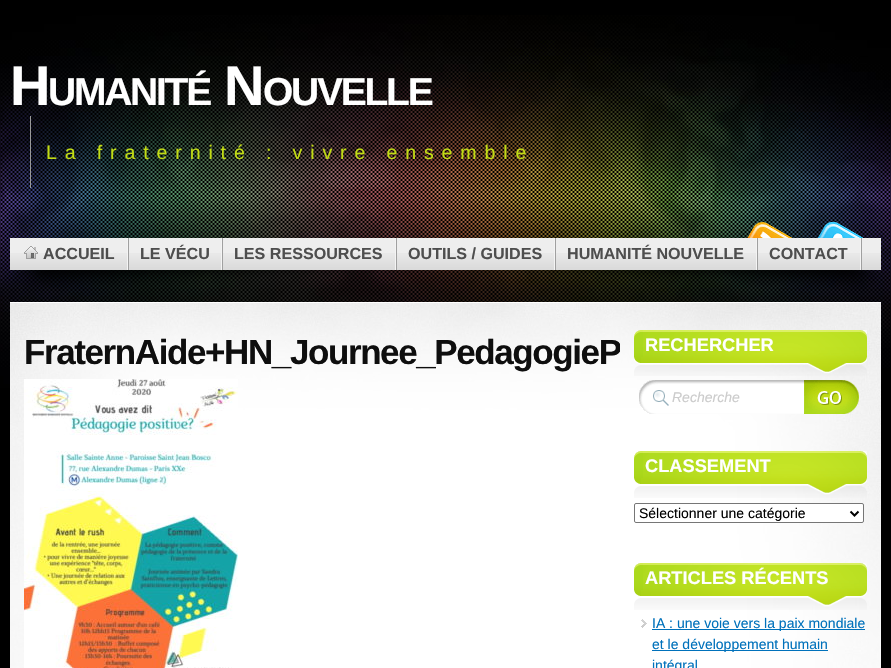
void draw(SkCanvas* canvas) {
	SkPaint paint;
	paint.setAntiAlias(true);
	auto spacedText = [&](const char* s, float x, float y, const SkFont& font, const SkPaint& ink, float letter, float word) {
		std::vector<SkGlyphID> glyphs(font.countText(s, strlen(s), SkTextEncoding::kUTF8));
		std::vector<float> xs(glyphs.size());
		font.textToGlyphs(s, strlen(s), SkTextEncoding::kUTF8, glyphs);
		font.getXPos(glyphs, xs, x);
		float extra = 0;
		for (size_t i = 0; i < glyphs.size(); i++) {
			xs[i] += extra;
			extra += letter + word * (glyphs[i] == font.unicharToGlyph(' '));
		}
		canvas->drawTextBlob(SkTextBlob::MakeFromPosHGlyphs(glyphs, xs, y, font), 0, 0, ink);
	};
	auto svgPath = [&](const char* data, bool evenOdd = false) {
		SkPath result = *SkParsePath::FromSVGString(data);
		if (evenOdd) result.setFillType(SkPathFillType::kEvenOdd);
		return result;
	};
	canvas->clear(0xff000000);
	canvas->drawImageRect(SkImages::DeferredFromEncodedData(SkData::MakeFromFileName("img1.png")), SkRect::MakeXYWH(0, 15, 891, 373), SkSamplingOptions());
	SkFont f1(fontMgr->matchFamilyStyle("Liberation Sans", SkFontStyle::Bold()), 56);
	f1.setSubpixel(true);
	paint.setColor(0xffffffff);
	spacedText("H", 10, 105, f1, paint, -2.25, 0);
	SkFont f2(fontMgr->matchFamilyStyle("Liberation Sans", SkFontStyle::Bold()), 39);
	f2.setSubpixel(true);
	spacedText("UMANITÉ", 48, 105, f2, paint, -2.25, 0);
	spacedText("N", 224, 105, f1, paint, -2.25, 0);
	spacedText("OUVELLE", 263, 105, f2, paint, -2.25, 0);
	paint.setColor(0xff999999);
	canvas->drawRect(SkRect::MakeXYWH(30, 116, 1, 72), paint);
	SkFont f3(fontMgr->matchFamilyStyle("Liberation Sans", SkFontStyle::Normal()), 19.6);
	f3.setSubpixel(true);
	paint.setColor(0xffc2dc15);
	spacedText("La fraternité : vivre ensemble", 46, 159, f3, paint, 7.85, 0);
	canvas->drawImageRect(SkImages::DeferredFromEncodedData(SkData::MakeFromFileName("img2.png")), SkRect::MakeXYWH(13, 270, 421, 21), SkSamplingOptions());
	canvas->drawImageRect(SkImages::DeferredFromEncodedData(SkData::MakeFromFileName("img3.png")), SkRect::MakeXYWH(453, 270, 427, 20), SkSamplingOptions());
	canvas->drawImageRect(SkImages::DeferredFromEncodedData(SkData::MakeFromFileName("img4.png")), SkRect::MakeXYWH(747, 222, 45, 16), SkSamplingOptions());
	canvas->drawImageRect(SkImages::DeferredFromEncodedData(SkData::MakeFromFileName("img5.png")), SkRect::MakeXYWH(817, 222, 46, 16), SkSamplingOptions());
	paint.setColor(0xffeeeeee);
	canvas->drawRect(SkRect::MakeXYWH(10, 238, 871, 15), paint);
	canvas->drawImageRect(SkImages::DeferredFromEncodedData(SkData::MakeFromFileName("img6.png")), SkRect::MakeXYWH(10, 253, 871, 17), SkSamplingOptions());
	canvas->drawImageRect(SkImages::DeferredFromEncodedData(SkData::MakeFromFileName("img7.png")), SkRect::MakeXYWH(127, 238, 2, 32), SkSamplingOptions());
	canvas->drawImageRect(SkImages::DeferredFromEncodedData(SkData::MakeFromFileName("img8.png")), SkRect::MakeXYWH(24, 246, 14, 13), SkSamplingOptions());
	SkFont f4(fontMgr->matchFamilyStyle("Liberation Sans", SkFontStyle::Bold()), 16.1);
	f4.setSubpixel(true);
	paint.setColor(0xff4e4e4e);
	canvas->drawString("ACCUEIL", 43, 259, f4, paint);
	canvas->drawImageRect(SkImages::DeferredFromEncodedData(SkData::MakeFromFileName("img7.png")), SkRect::MakeXYWH(221, 238, 2, 32), SkSamplingOptions());
	canvas->drawString("LE VÉCU", 140, 259, f4, paint);
	canvas->drawImageRect(SkImages::DeferredFromEncodedData(SkData::MakeFromFileName("img7.png")), SkRect::MakeXYWH(395, 238, 2, 32), SkSamplingOptions());
	canvas->drawString("LES RESSOURCES", 234, 259, f4, paint);
	canvas->drawImageRect(SkImages::DeferredFromEncodedData(SkData::MakeFromFileName("img7.png")), SkRect::MakeXYWH(554, 238, 2, 32), SkSamplingOptions());
	canvas->drawString("OUTILS / GUIDES", 408, 259, f4, paint);
	canvas->drawImageRect(SkImages::DeferredFromEncodedData(SkData::MakeFromFileName("img7.png")), SkRect::MakeXYWH(756, 238, 2, 32), SkSamplingOptions());
	canvas->drawString("HUMANITÉ NOUVELLE", 567, 259, f4, paint);
	canvas->drawImageRect(SkImages::DeferredFromEncodedData(SkData::MakeFromFileName("img7.png")), SkRect::MakeXYWH(860, 238, 2, 32), SkSamplingOptions());
	canvas->drawString("CONTACT", 769, 259, f4, paint);
	paint.setColor(0xffffffff);
	canvas->drawRect(SkRect::MakeXYWH(10, 302, 871, 1), paint);
	canvas->drawImageRect(SkImages::DeferredFromEncodedData(SkData::MakeFromFileName("img9.png")), SkRect::MakeXYWH(243, 303, 638, 365), SkSamplingOptions());
	canvas->drawImageRect(SkImages::DeferredFromEncodedData(SkData::MakeFromFileName("img10.png")), SkRect::MakeXYWH(10, 303, 233, 365), SkSamplingOptions());
	canvas->save();
	canvas->clipRect(SkRect::MakeXYWH(10, 302, 610, 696));
	SkFont f5(fontMgr->matchFamilyStyle("Liberation Sans", SkFontStyle::Bold()), 35);
	f5.setSubpixel(true);
	paint.setColor(0xff0e0e0e);
	spacedText("FraternAide+HN_Journee_PedagogieP", 24, 364, f5, paint, -1.4, 0);
	canvas->restore();
	canvas->drawImageRect(SkImages::DeferredFromEncodedData(SkData::MakeFromFileName("img11.png")), SkRect::MakeXYWH(24, 379, 214, 289), SkSamplingOptions());
	canvas->drawImageRect(SkImages::DeferredFromEncodedData(SkData::MakeFromFileName("img12.png")), SkRect::MakeXYWH(634, 330, 9, 27), SkSamplingOptions());
	canvas->drawImageRect(SkImages::DeferredFromEncodedData(SkData::MakeFromFileName("img13.png")), SkRect::MakeXYWH(643, 330, 224, 27), SkSamplingOptions());
	SkFont f6(fontMgr->matchFamilyStyle("Liberation Sans", SkFontStyle::Bold()), 18.25);
	f6.setSubpixel(true);
	paint.setColor(0xffffffff);
	canvas->drawString("RECHERCHER", 645, 351, f6, paint);
	canvas->drawImageRect(SkImages::DeferredFromEncodedData(SkData::MakeFromFileName("img14.png")), SkRect::MakeXYWH(634, 357, 7, 19), SkSamplingOptions());
	canvas->drawImageRect(SkImages::DeferredFromEncodedData(SkData::MakeFromFileName("img15.png")), SkRect::MakeXYWH(641, 357, 226, 19), SkSamplingOptions());
	canvas->drawImageRect(SkImages::DeferredFromEncodedData(SkData::MakeFromFileName("img16.png")), SkRect::MakeXYWH(639, 380, 165, 34), SkSamplingOptions());
	SkFont f7(fontMgr->matchFamilyStyle("Liberation Sans", SkFontStyle::Italic()), 14);
	f7.setSubpixel(true);
	paint.setColor(0xffcccccc);
	canvas->drawString("Recherche", 672, 402, f7, paint);
	canvas->drawImageRect(SkImages::DeferredFromEncodedData(SkData::MakeFromFileName("img17.png")), SkRect::MakeXYWH(804, 380, 55, 34), SkSamplingOptions());
	canvas->drawImageRect(SkImages::DeferredFromEncodedData(SkData::MakeFromFileName("img18.png")), SkRect::MakeXYWH(634, 451, 9, 27), SkSamplingOptions());
	canvas->drawImageRect(SkImages::DeferredFromEncodedData(SkData::MakeFromFileName("img13.png")), SkRect::MakeXYWH(643, 451, 224, 27), SkSamplingOptions());
	paint.setColor(0xffffffff);
	canvas->drawString("CLASSEMENT", 645, 472, f6, paint);
	canvas->drawImageRect(SkImages::DeferredFromEncodedData(SkData::MakeFromFileName("img19.png")), SkRect::MakeXYWH(634, 478, 7, 20), SkSamplingOptions());
	canvas->drawImageRect(SkImages::DeferredFromEncodedData(SkData::MakeFromFileName("img20.png")), SkRect::MakeXYWH(641, 478, 226, 20), SkSamplingOptions());
	canvas->drawRoundRect(SkRect::MakeXYWH(634.5, 503.5, 229, 19), 1.5, 1.5, paint);
	paint.setStroke(true);
	paint.setStrokeWidth(1);
	paint.setColor(0xff767676);
	canvas->drawRoundRect(SkRect::MakeXYWH(634.5, 503.5, 229, 19), 1.5, 1.5, paint);
	paint.setStrokeWidth(2);
	paint.setColor(0xff000000);
	canvas->drawPath(svgPath("M850.5 511.5L854.5 515.5L858.5 511.5"), paint);
	SkFont f8(fontMgr->matchFamilyStyle("Liberation Sans", SkFontStyle::Normal()), 14);
	f8.setSubpixel(true);
	paint.setStroke(false);
	canvas->drawString("Sélectionner une catégorie", 639, 518, f8, paint);
	canvas->drawImageRect(SkImages::DeferredFromEncodedData(SkData::MakeFromFileName("img18.png")), SkRect::MakeXYWH(634, 563, 9, 27), SkSamplingOptions());
	canvas->drawImageRect(SkImages::DeferredFromEncodedData(SkData::MakeFromFileName("img13.png")), SkRect::MakeXYWH(643, 563, 224, 27), SkSamplingOptions());
	paint.setColor(0xffffffff);
	canvas->drawString("ARTICLES RÉCENTS", 645, 584, f6, paint);
	canvas->drawImageRect(SkImages::DeferredFromEncodedData(SkData::MakeFromFileName("img19.png")), SkRect::MakeXYWH(634, 590, 7, 20), SkSamplingOptions());
	canvas->drawImageRect(SkImages::DeferredFromEncodedData(SkData::MakeFromFileName("img21.png")), SkRect::MakeXYWH(641, 590, 226, 20), SkSamplingOptions());
	canvas->drawImageRect(SkImages::DeferredFromEncodedData(SkData::MakeFromFileName("img22.png")), SkRect::MakeXYWH(641, 619, 6, 9), SkSamplingOptions());
	paint.setColor(0xff0071bb);
	canvas->drawRect(SkRect::MakeXYWH(652, 629, 213, 1), paint);
	canvas->drawString("IA : une voie vers la paix mondiale", 652, 628, f8, paint);
	canvas->drawRect(SkRect::MakeXYWH(652, 650, 176, 1), paint);
	canvas->drawString("et le développement humain", 652, 649, f8, paint);
	canvas->drawString("intégral", 652, 670, f8, paint);
}
